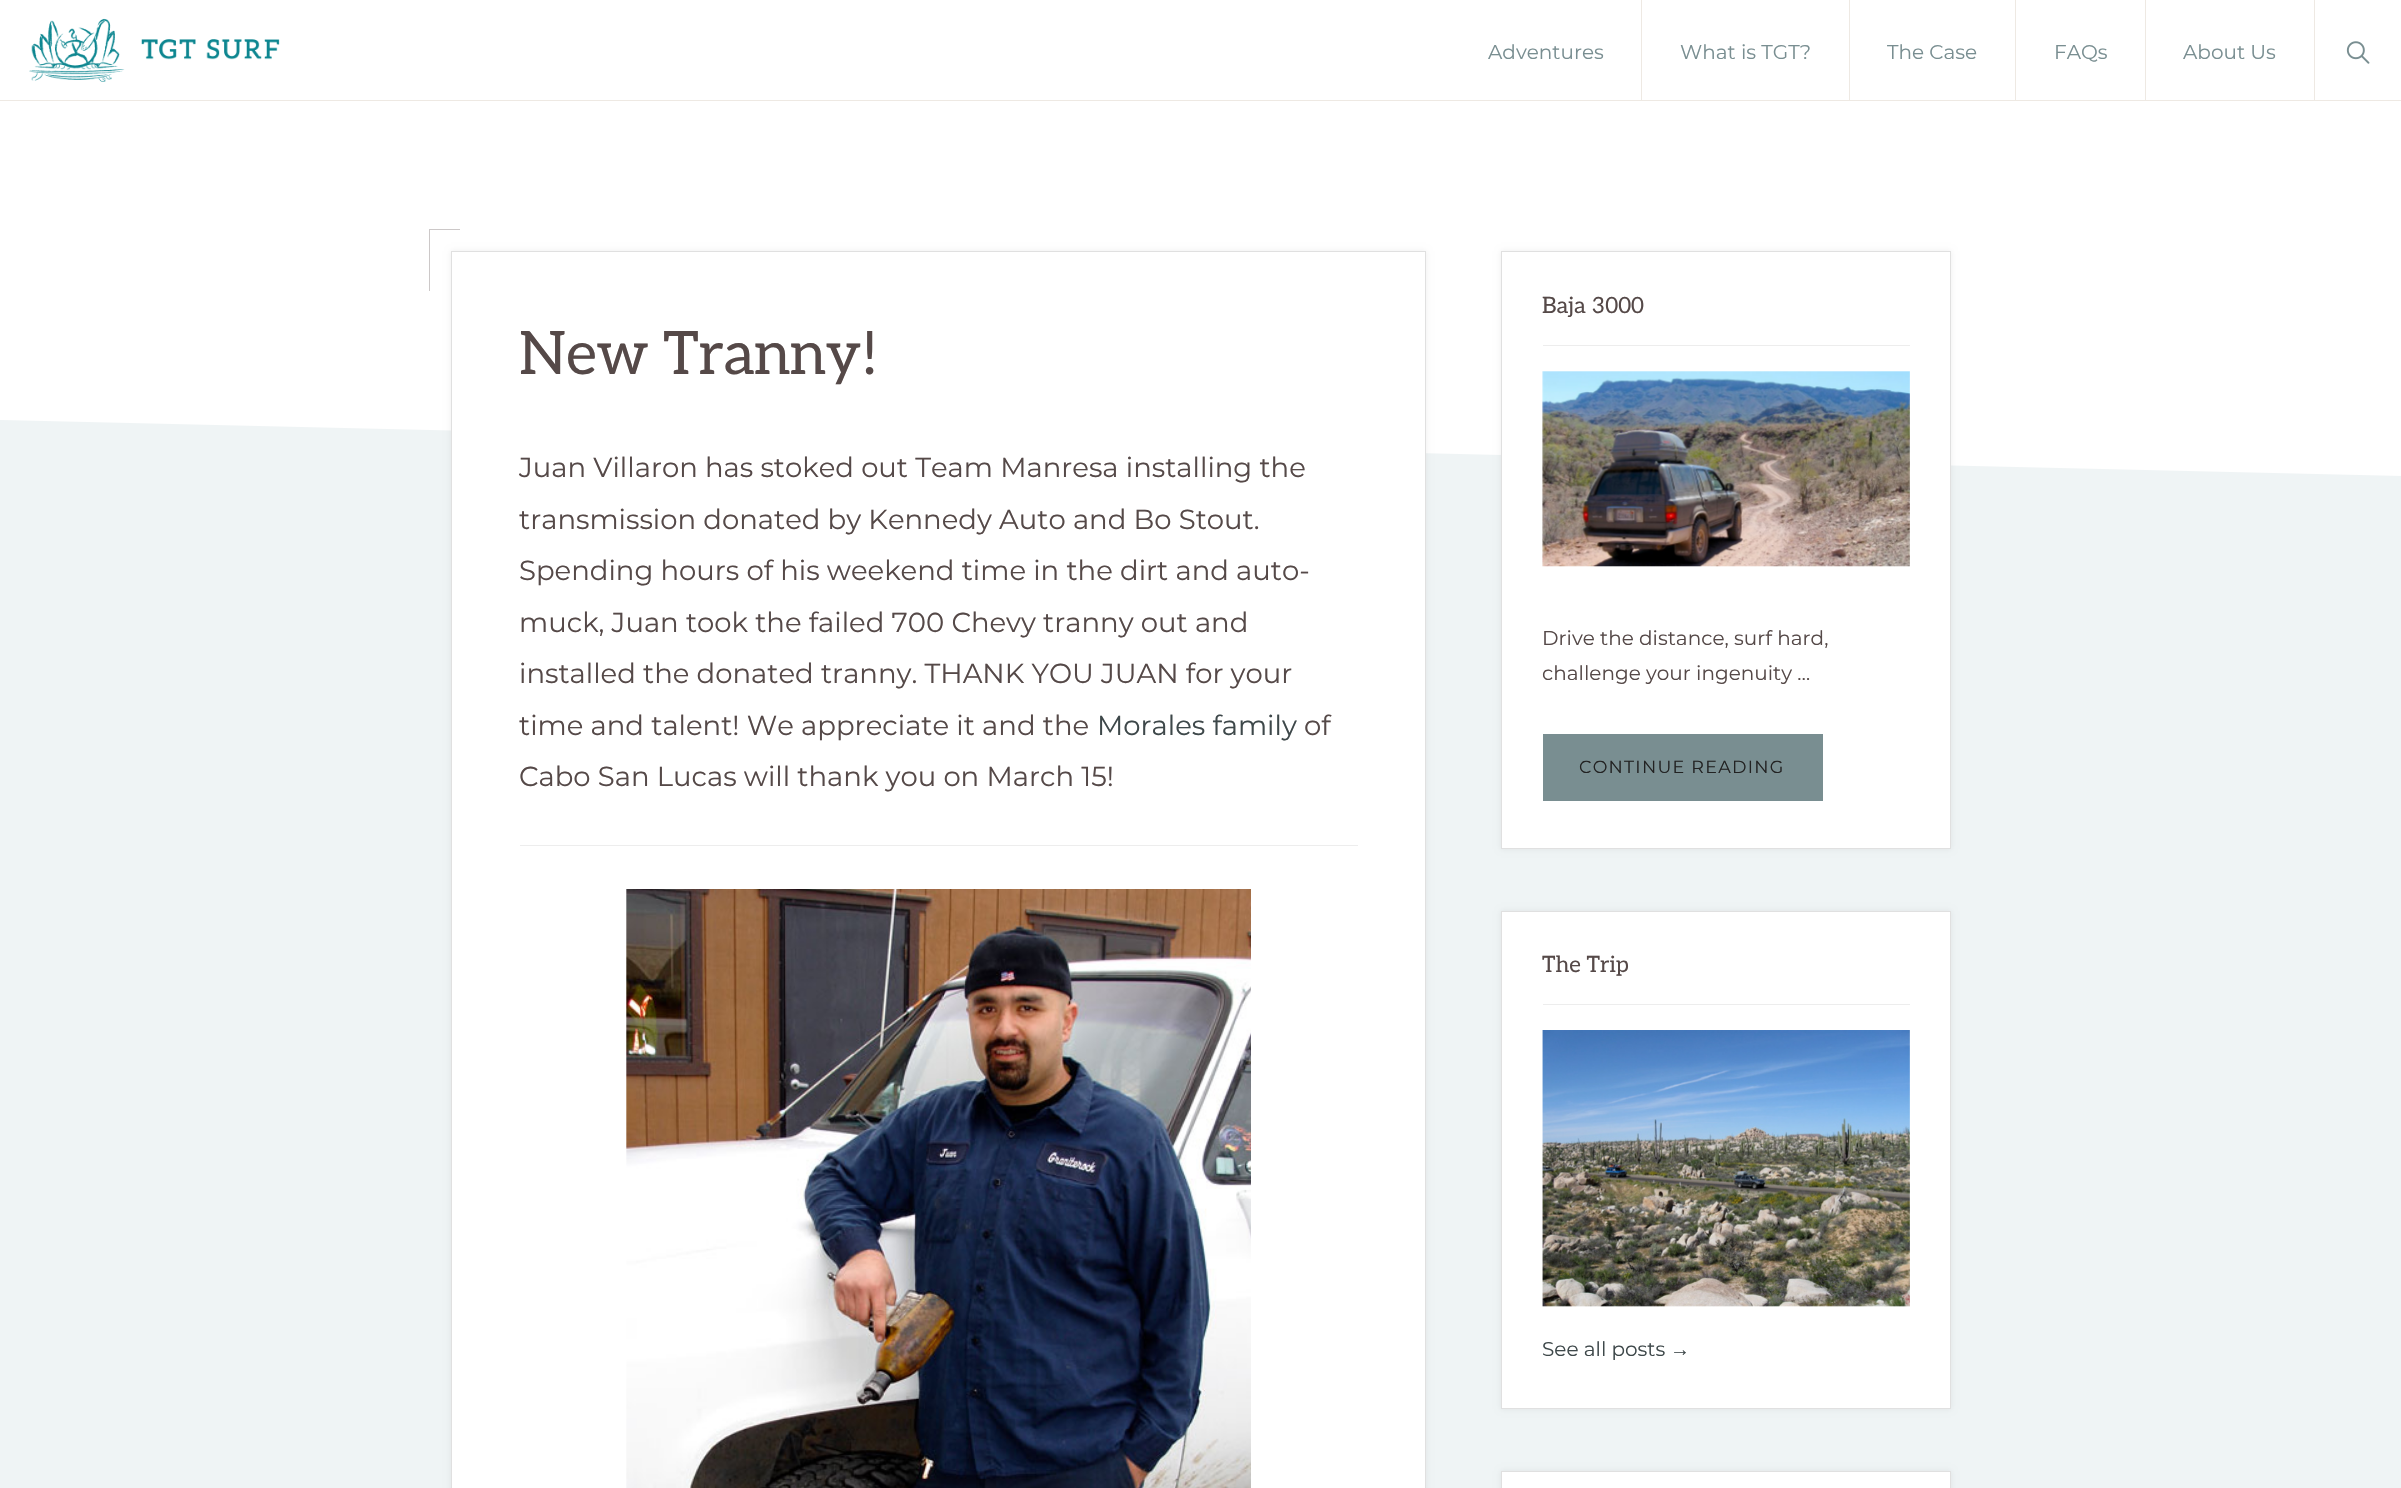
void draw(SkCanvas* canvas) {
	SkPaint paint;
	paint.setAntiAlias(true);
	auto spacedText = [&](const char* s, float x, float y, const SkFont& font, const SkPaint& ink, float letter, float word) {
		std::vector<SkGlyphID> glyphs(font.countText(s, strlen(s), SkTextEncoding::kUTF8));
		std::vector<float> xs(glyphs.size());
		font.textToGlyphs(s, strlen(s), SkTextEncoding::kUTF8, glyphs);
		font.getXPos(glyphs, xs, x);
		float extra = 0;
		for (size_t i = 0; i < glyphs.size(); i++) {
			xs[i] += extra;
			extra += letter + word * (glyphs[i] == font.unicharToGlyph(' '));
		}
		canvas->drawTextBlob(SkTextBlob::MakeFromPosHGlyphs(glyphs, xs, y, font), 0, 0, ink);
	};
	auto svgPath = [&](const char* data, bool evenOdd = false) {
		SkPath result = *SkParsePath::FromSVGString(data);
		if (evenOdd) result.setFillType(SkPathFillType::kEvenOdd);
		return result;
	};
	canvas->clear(0xffeff4f5);
	paint.setColor(0xffffffff);
	canvas->drawRect(SkRect::MakeXYWH(0, 0, 2401, 100), paint);
	paint.setColor(0xffeee9e3);
	canvas->drawRect(SkRect::MakeXYWH(0, 100, 2401, 1), paint);
	canvas->drawImageRect(SkImages::DeferredFromEncodedData(SkData::MakeFromFileName("img1.png")), SkRect::MakeXYWH(29, 18, 251, 64), SkSamplingOptions());
	canvas->drawRect(SkRect::MakeXYWH(1641, 0, 1, 100), paint);
	SkFont f1(fontMgr->matchFamilyStyle("Montserrat", SkFontStyle::Normal()), 20);
	f1.setSubpixel(true);
	paint.setColor(0xff798e91);
	canvas->drawString("Adventures", 1488, 59, f1, paint);
	paint.setColor(0xffeee9e3);
	canvas->drawRect(SkRect::MakeXYWH(1849, 0, 1, 100), paint);
	paint.setColor(0xff798e91);
	canvas->drawString("What is TGT?", 1680, 59, f1, paint);
	paint.setColor(0xffeee9e3);
	canvas->drawRect(SkRect::MakeXYWH(2015, 0, 1, 100), paint);
	paint.setColor(0xff798e91);
	canvas->drawString("The Case", 1887, 59, f1, paint);
	paint.setColor(0xffeee9e3);
	canvas->drawRect(SkRect::MakeXYWH(2145, 0, 1, 100), paint);
	paint.setColor(0xff798e91);
	canvas->drawString("FAQs", 2054, 59, f1, paint);
	paint.setColor(0xffeee9e3);
	canvas->drawRect(SkRect::MakeXYWH(2314, 0, 1, 100), paint);
	paint.setColor(0xff798e91);
	canvas->drawString("About Us", 2183, 59, f1, paint);
	canvas->drawImageRect(SkImages::DeferredFromEncodedData(SkData::MakeFromFileName("img2.png")), SkRect::MakeXYWH(2346, 41, 24, 23), SkSamplingOptions());
	paint.setColor(0xffffffff);
	canvas->drawPath(svgPath("M0 101V420L2401 476V101Z"), paint);
	paint.setColor(0x12000000);
	paint.setMaskFilter(SkMaskFilter::MakeBlur(kNormal_SkBlurStyle, 3));
	canvas->drawRect(SkRect::MakeXYWH(451, 251, 975, 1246), paint);
	paint.setMaskFilter(nullptr);
	paint.setColor(0xffffffff);
	canvas->drawRect(SkRect::MakeXYWH(451.5, 251.5, 974, 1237), paint);
	paint.setStroke(true);
	paint.setStrokeWidth(1);
	paint.setColor(0xffe0e0e0);
	canvas->drawRect(SkRect::MakeXYWH(451.5, 251.5, 974, 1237), paint);
	paint.setStroke(false);
	paint.setColor(0xffccc8c8);
	canvas->drawRect(SkRect::MakeXYWH(429, 229, 31, 1), paint);
	canvas->drawRect(SkRect::MakeXYWH(429, 229, 1, 62), paint);
	SkFont f2(fontMgr->matchFamilyStyle("Aleo", SkFontStyle::Normal()), 60);
	f2.setSubpixel(true);
	paint.setColor(0xff554948);
	spacedText("New Tranny!", 519, 374, f2, paint, -0.6, 0);
	paint.setColor(0xffededed);
	canvas->drawRect(SkRect::MakeXYWH(520, 845, 838, 1), paint);
	SkFont f3(fontMgr->matchFamilyStyle("Montserrat", SkFontStyle::Normal()), 27.5);
	f3.setSubpixel(true);
	paint.setColor(0xff554948);
	canvas->drawString("Juan Villaron has stoked out Team Manresa installing the", 519, 477, f3, paint);
	canvas->drawString("transmission donated by Kennedy Auto and Bo Stout.", 519, 529, f3, paint);
	canvas->drawString("Spending hours of his weekend time in the dirt and auto-", 519, 580, f3, paint);
	canvas->drawString("muck, Juan took the failed 700 Chevy tranny out and", 519, 632, f3, paint);
	canvas->drawString("installed the donated tranny. THANK YOU JUAN for your", 519, 683, f3, paint);
	canvas->drawString("time and talent! We appreciate it and the", 519, 735, f3, paint);
	paint.setColor(0xff3e484a);
	canvas->drawString("Morales family", 1097, 735, f3, paint);
	paint.setColor(0xff554948);
	canvas->drawString("of", 1304, 735, f3, paint);
	canvas->drawString("Cabo San Lucas will thank you on March 15!", 519, 786, f3, paint);
	canvas->drawImageRect(SkImages::DeferredFromEncodedData(SkData::MakeFromFileName("img3.png")), SkRect::MakeXYWH(626, 889, 625, 599), SkSamplingOptions());
	paint.setColor(0x12000000);
	paint.setMaskFilter(SkMaskFilter::MakeBlur(kNormal_SkBlurStyle, 3));
	canvas->drawRect(SkRect::MakeXYWH(1501, 251, 450, 598), paint);
	paint.setMaskFilter(nullptr);
	paint.setColor(0xffffffff);
	canvas->drawRect(SkRect::MakeXYWH(1501.5, 251.5, 449, 597), paint);
	paint.setStroke(true);
	paint.setColor(0xffe0e0e0);
	canvas->drawRect(SkRect::MakeXYWH(1501.5, 251.5, 449, 597), paint);
	paint.setStroke(false);
	paint.setColor(0xffededed);
	canvas->drawRect(SkRect::MakeXYWH(1543, 345, 367, 1), paint);
	SkFont f4(fontMgr->matchFamilyStyle("Aleo", SkFontStyle::Normal()), 22.5);
	f4.setSubpixel(true);
	paint.setColor(0xff554948);
	canvas->drawString("Baja 3000", 1542, 313, f4, paint);
	canvas->drawImageRect(SkImages::DeferredFromEncodedData(SkData::MakeFromFileName("img4.png")), SkRect::MakeXYWH(1542, 371, 368, 196), SkSamplingOptions());
	canvas->drawString("Drive the distance, surf hard,", 1542, 645, f1, paint);
	canvas->drawString("challenge your ingenuity …", 1542, 680, f1, paint);
	paint.setColor(0xff798e91);
	canvas->drawRect(SkRect::MakeXYWH(1543, 734, 280, 67), paint);
	SkFont f5(fontMgr->matchFamilyStyle("Montserrat", SkFontStyle::Normal()), 17.5);
	f5.setSubpixel(true);
	paint.setColor(0xff222222);
	spacedText("CONTINUE READING", 1579, 773, f5, paint, 1.25, 0);
	paint.setColor(0x12000000);
	paint.setMaskFilter(SkMaskFilter::MakeBlur(kNormal_SkBlurStyle, 3));
	canvas->drawRect(SkRect::MakeXYWH(1501, 911, 450, 498), paint);
	paint.setMaskFilter(nullptr);
	paint.setColor(0xffffffff);
	canvas->drawRect(SkRect::MakeXYWH(1501.5, 911.5, 449, 497), paint);
	paint.setStroke(true);
	paint.setColor(0xffe0e0e0);
	canvas->drawRect(SkRect::MakeXYWH(1501.5, 911.5, 449, 497), paint);
	paint.setStroke(false);
	paint.setColor(0xffededed);
	canvas->drawRect(SkRect::MakeXYWH(1543, 1004, 367, 1), paint);
	paint.setColor(0xff554948);
	canvas->drawString("The Trip", 1542, 972, f4, paint);
	canvas->drawImageRect(SkImages::DeferredFromEncodedData(SkData::MakeFromFileName("img5.png")), SkRect::MakeXYWH(1542, 1030, 368, 277), SkSamplingOptions());
	paint.setColor(0xff3e484a);
	canvas->drawString("See all posts", 1542, 1356, f1, paint);
	SkFont f6(fontMgr->matchFamilyStyle("Liberation Sans", SkFontStyle::Normal()), 20);
	f6.setSubpixel(true);
	canvas->drawString("→", 1670, 1356, f6, paint);
	paint.setColor(0x12000000);
	paint.setMaskFilter(SkMaskFilter::MakeBlur(kNormal_SkBlurStyle, 3));
	canvas->drawRect(SkRect::MakeXYWH(1501, 1471, 450, 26), paint);
	paint.setMaskFilter(nullptr);
	paint.setColor(0xffffffff);
	canvas->drawRect(SkRect::MakeXYWH(1501.5, 1471.5, 449, 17), paint);
	paint.setStroke(true);
	paint.setColor(0xffe0e0e0);
	canvas->drawRect(SkRect::MakeXYWH(1501.5, 1471.5, 449, 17), paint);
}
